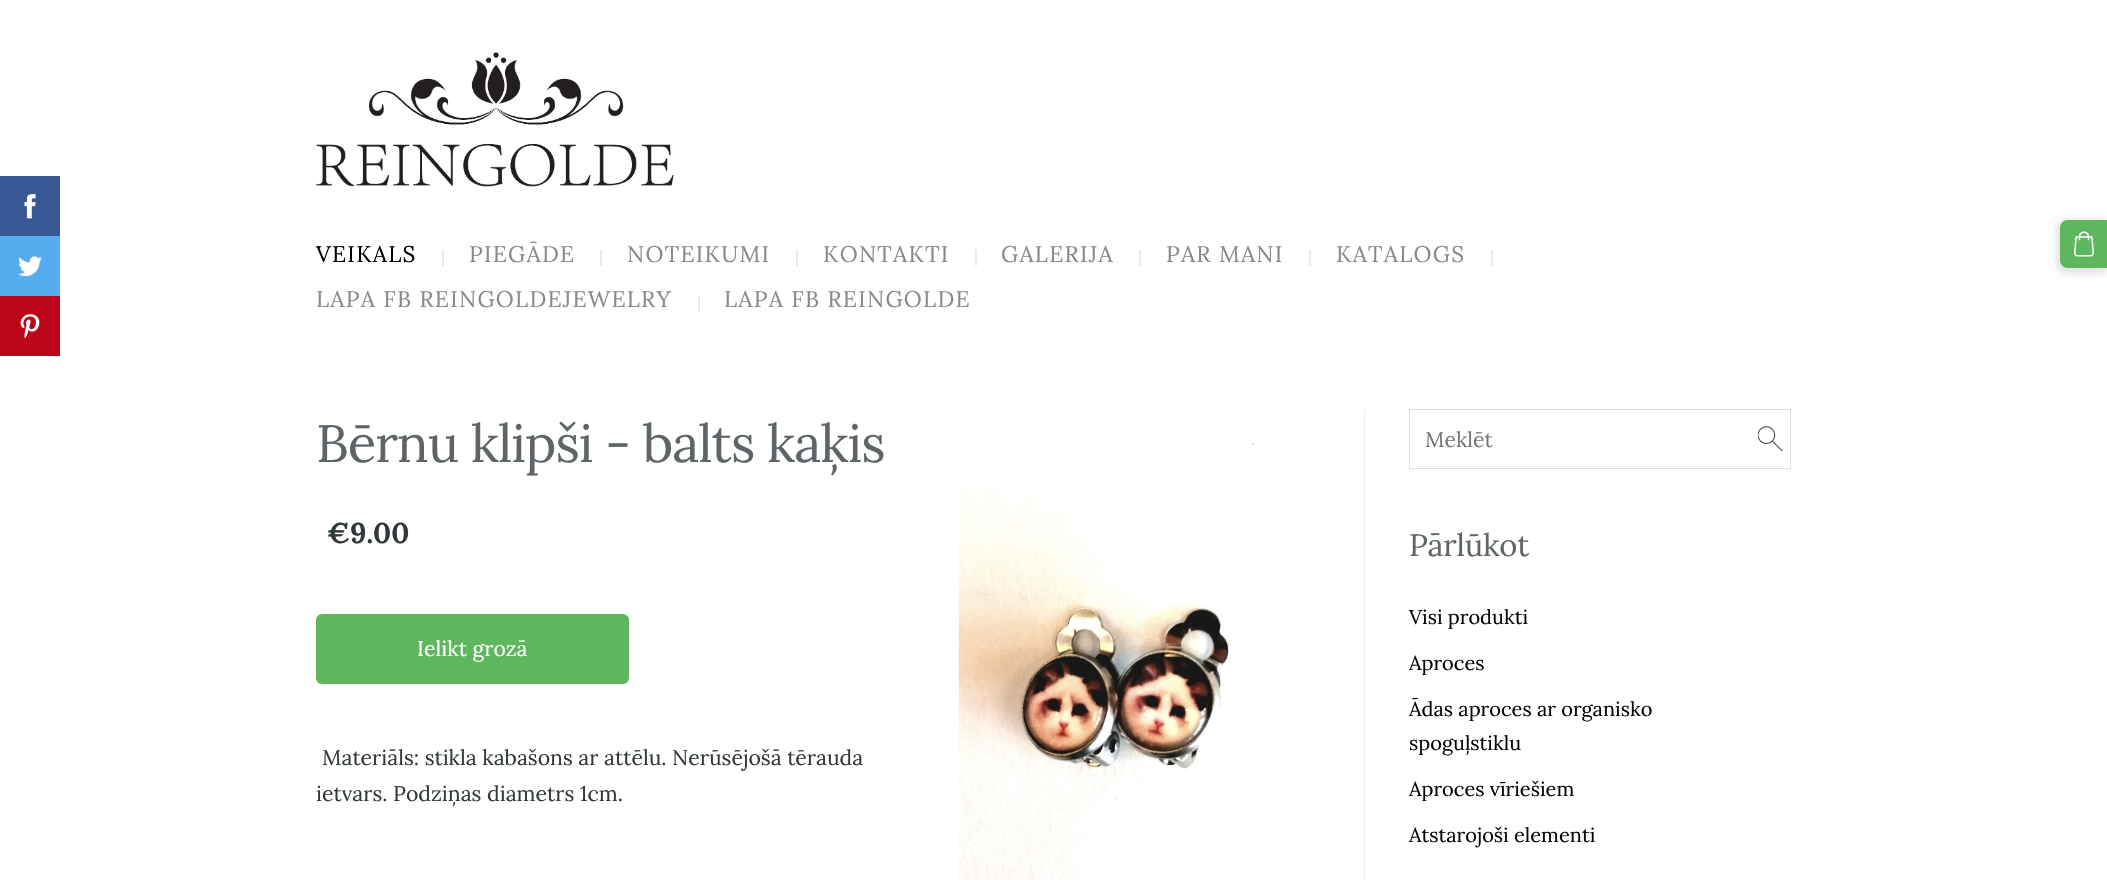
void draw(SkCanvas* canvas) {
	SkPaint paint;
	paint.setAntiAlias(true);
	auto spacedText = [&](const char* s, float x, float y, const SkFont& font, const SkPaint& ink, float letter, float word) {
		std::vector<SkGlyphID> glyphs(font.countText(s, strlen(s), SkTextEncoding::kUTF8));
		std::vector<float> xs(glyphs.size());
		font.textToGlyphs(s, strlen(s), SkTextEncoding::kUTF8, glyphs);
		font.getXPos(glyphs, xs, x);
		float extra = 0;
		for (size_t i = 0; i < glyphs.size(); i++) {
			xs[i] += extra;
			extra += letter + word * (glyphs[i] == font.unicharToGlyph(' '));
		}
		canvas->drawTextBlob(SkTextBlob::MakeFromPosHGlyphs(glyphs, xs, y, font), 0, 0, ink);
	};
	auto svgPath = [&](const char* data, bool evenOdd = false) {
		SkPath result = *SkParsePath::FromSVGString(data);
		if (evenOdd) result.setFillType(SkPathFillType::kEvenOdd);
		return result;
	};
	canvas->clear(0xffffffff);
	paint.setColor(0xff3a5795);
	canvas->drawRect(SkRect::MakeXYWH(0, 176, 60, 60), paint);
	canvas->drawImageRect(SkImages::DeferredFromEncodedData(SkData::MakeFromFileName("img1.png")), SkRect::MakeXYWH(24, 194, 12, 25), SkSamplingOptions());
	paint.setColor(0xff55acee);
	canvas->drawRect(SkRect::MakeXYWH(0, 236, 60, 60), paint);
	canvas->drawImageRect(SkImages::DeferredFromEncodedData(SkData::MakeFromFileName("img2.png")), SkRect::MakeXYWH(18, 256, 24, 21), SkSamplingOptions());
	paint.setColor(0xffbc0618);
	canvas->drawRect(SkRect::MakeXYWH(0, 296, 60, 60), paint);
	canvas->drawImageRect(SkImages::DeferredFromEncodedData(SkData::MakeFromFileName("img3.png")), SkRect::MakeXYWH(20, 314, 20, 25), SkSamplingOptions());
	canvas->drawImageRect(SkImages::DeferredFromEncodedData(SkData::MakeFromFileName("img4.png")), SkRect::MakeXYWH(316, 52, 358, 135), SkSamplingOptions());
	SkFont f1(fontMgr->matchFamilyStyle("Lora", SkFontStyle::Normal()), 22.6);
	f1.setSubpixel(true);
	paint.setColor(0xff070000);
	spacedText("VEIKALS", 316, 262, f1, paint, 1.25, 0);
	SkFont f2(fontMgr->matchFamilyStyle("WenQuanYi Zen Hei", SkFontStyle(500, SkFontStyle::kNormal_Width, SkFontStyle::kUpright_Slant)), 16);
	f2.setSubpixel(true);
	paint.setColor(0xffdddddd);
	canvas->drawString("｜", 435, 262, f2, paint);
	paint.setColor(0xff898989);
	spacedText("PIEGĀDE", 469, 262, f1, paint, 1.25, 0);
	paint.setColor(0xffdddddd);
	canvas->drawString("｜", 593, 262, f2, paint);
	paint.setColor(0xff898989);
	spacedText("NOTEIKUMI", 627, 262, f1, paint, 1.25, 0);
	paint.setColor(0xffdddddd);
	canvas->drawString("｜", 789, 262, f2, paint);
	paint.setColor(0xff898989);
	spacedText("KONTAKTI", 823, 262, f1, paint, 1.25, 0);
	paint.setColor(0xffdddddd);
	canvas->drawString("｜", 968, 262, f2, paint);
	paint.setColor(0xff898989);
	spacedText("GALERIJA", 1001, 262, f1, paint, 1.25, 0);
	paint.setColor(0xffdddddd);
	canvas->drawString("｜", 1132, 262, f2, paint);
	paint.setColor(0xff898989);
	spacedText("PAR MANI", 1166, 262, f1, paint, 1.25, 0);
	paint.setColor(0xffdddddd);
	canvas->drawString("｜", 1302, 262, f2, paint);
	paint.setColor(0xff898989);
	spacedText("KATALOGS", 1336, 262, f1, paint, 1.25, 0);
	paint.setColor(0xffdddddd);
	canvas->drawString("｜", 1484, 262, f2, paint);
	paint.setColor(0xff898989);
	spacedText("LAPA FB REINGOLDEJEWELRY", 316, 307, f1, paint, 1.25, 0);
	paint.setColor(0xffdddddd);
	canvas->drawString("｜", 691, 307, f2, paint);
	paint.setColor(0xff898989);
	spacedText("LAPA FB REINGOLDE", 724, 307, f1, paint, 1.25, 0);
	paint.setColor(0x1a000000);
	paint.setMaskFilter(SkMaskFilter::MakeBlur(kNormal_SkBlurStyle, 3));
	canvas->drawRoundRect(SkRect::MakeXYWH(2056, 219, 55, 55), 11, 11, paint);
	paint.setMaskFilter(nullptr);
	paint.setColor(0xff5fb75d);
	canvas->drawPath(svgPath("M2068 220H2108V268H2068C2063.5 268 2060 264.5 2060 260V228C2060 223.5 2063.5 220 2068 220Z"), paint);
	canvas->drawImageRect(SkImages::DeferredFromEncodedData(SkData::MakeFromFileName("img5.png")), SkRect::MakeXYWH(2074, 231, 20, 26), SkSamplingOptions());
	SkFont f3(fontMgr->matchFamilyStyle("Lora", SkFontStyle::Normal()), 52.6);
	f3.setSubpixel(true);
	paint.setColor(0xff5e6568);
	spacedText("Bērnu klipši - balts kaķis", 316, 462, f3, paint, -1.05, 0);
	SkFont f4(fontMgr->matchFamilyStyle("Lora", SkFontStyle::Bold()), 28.5);
	f4.setSubpixel(true);
	paint.setColor(0xff30383b);
	canvas->drawString("€9.00", 327, 543, f4, paint);
	paint.setColor(0xff5fb75d);
	canvas->drawRoundRect(SkRect::MakeXYWH(316, 614, 313, 70), 6, 6, paint);
	SkFont f5(fontMgr->matchFamilyStyle("Lora", SkFontStyle::Normal()), 21.2);
	f5.setSubpixel(true);
	paint.setColor(0xffffffff);
	canvas->drawString("Ielikt grozā", 417, 656, f5, paint);
	paint.setColor(0xff30383b);
	canvas->drawString("Materiāls: stikla kabašons ar attēlu. Nerūsējošā tērauda", 322, 765, f5, paint);
	canvas->drawString("ietvars. Podziņas diametrs 1cm.", 316, 801, f5, paint);
	canvas->drawImageRect(SkImages::DeferredFromEncodedData(SkData::MakeFromFileName("img6.png")), SkRect::MakeXYWH(958, 443, 297, 437), SkSamplingOptions());
	paint.setColor(0xffeeeeee);
	canvas->drawRect(SkRect::MakeXYWH(1364, 409, 1, 471), paint);
	paint.setStroke(true);
	paint.setStrokeWidth(1);
	paint.setColor(0xffdddddd);
	canvas->drawRect(SkRect::MakeXYWH(1409.5, 409.5, 381, 59), paint);
	paint.setStroke(false);
	paint.setColor(0xff757575);
	canvas->drawString("Meklēt", 1425, 447, f5, paint);
	canvas->drawImageRect(SkImages::DeferredFromEncodedData(SkData::MakeFromFileName("img7.png")), SkRect::MakeXYWH(1758, 426, 25, 25), SkSamplingOptions());
	SkFont f6(fontMgr->matchFamilyStyle("Lora", SkFontStyle::Normal()), 31);
	f6.setSubpixel(true);
	paint.setColor(0xff5e6568);
	spacedText("Pārlūkot", 1409, 556, f6, paint, -0.25, 0);
	SkFont f7(fontMgr->matchFamilyStyle("Lora", SkFontStyle::Normal()), 20);
	f7.setSubpixel(true);
	paint.setColor(0xff040700);
	canvas->drawString("Visi produkti", 1409, 624, f7, paint);
	canvas->drawString("Aproces", 1409, 670, f7, paint);
	canvas->drawString("Ādas aproces ar organisko", 1409, 716, f7, paint);
	canvas->drawString("spoguļstiklu", 1409, 750, f7, paint);
	canvas->drawString("Aproces vīriešiem", 1409, 796, f7, paint);
	canvas->drawString("Atstarojoši elementi", 1409, 842, f7, paint);
}
